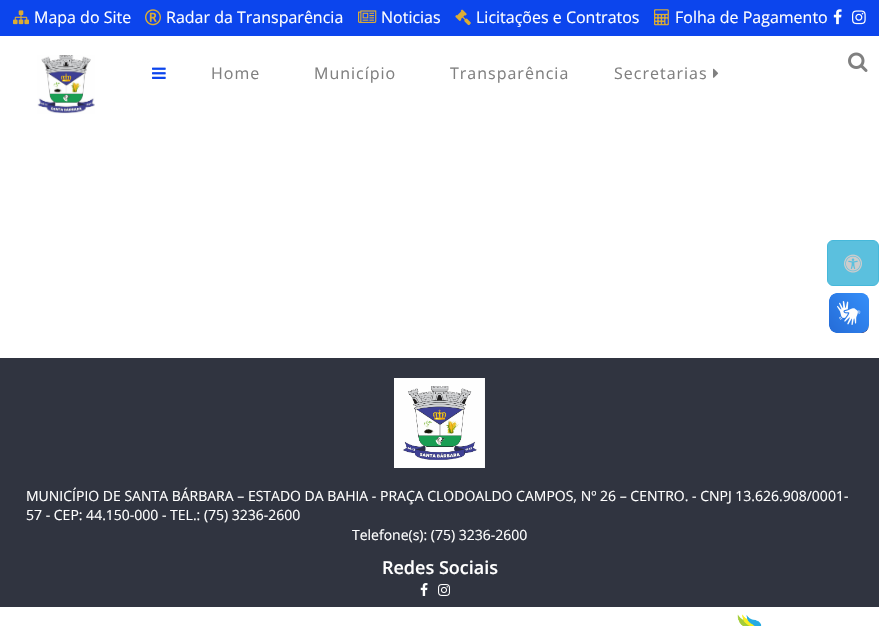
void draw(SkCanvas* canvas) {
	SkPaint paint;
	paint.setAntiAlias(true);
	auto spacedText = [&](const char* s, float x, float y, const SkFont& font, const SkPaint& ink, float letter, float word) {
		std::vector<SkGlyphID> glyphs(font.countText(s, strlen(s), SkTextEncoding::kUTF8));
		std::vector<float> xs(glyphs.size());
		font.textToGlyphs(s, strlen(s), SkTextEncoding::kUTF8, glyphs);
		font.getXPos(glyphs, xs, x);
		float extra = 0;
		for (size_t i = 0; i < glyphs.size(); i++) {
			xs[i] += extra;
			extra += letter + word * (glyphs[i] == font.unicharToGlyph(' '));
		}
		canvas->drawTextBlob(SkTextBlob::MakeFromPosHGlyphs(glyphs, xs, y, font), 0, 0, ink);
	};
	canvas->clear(0xffffffff);
	paint.setColor(0xff0c45ed);
	canvas->drawRect(SkRect::MakeXYWH(0, 0, 879, 36), paint);
	canvas->drawImageRect(SkImages::DeferredFromEncodedData(SkData::MakeFromFileName("img1.png")), SkRect::MakeXYWH(13, 10, 16, 15), SkSamplingOptions());
	SkFont f1(fontMgr->matchFamilyStyle("Open Sans", SkFontStyle::Normal()), 16);
	f1.setSubpixel(true);
	paint.setColor(0xffffffff);
	canvas->drawString("Mapa do Site", 34, 23, f1, paint);
	canvas->drawImageRect(SkImages::DeferredFromEncodedData(SkData::MakeFromFileName("img2.png")), SkRect::MakeXYWH(145, 9, 16, 17), SkSamplingOptions());
	canvas->drawString("Radar da Transparência", 166, 23, f1, paint);
	canvas->drawImageRect(SkImages::DeferredFromEncodedData(SkData::MakeFromFileName("img3.png")), SkRect::MakeXYWH(358, 10, 19, 13), SkSamplingOptions());
	canvas->drawString("Noticias", 381, 23, f1, paint);
	canvas->drawImageRect(SkImages::DeferredFromEncodedData(SkData::MakeFromFileName("img4.png")), SkRect::MakeXYWH(455, 9, 16, 17), SkSamplingOptions());
	canvas->drawString("Licitações e Contratos", 476, 23, f1, paint);
	canvas->drawImageRect(SkImages::DeferredFromEncodedData(SkData::MakeFromFileName("img5.png")), SkRect::MakeXYWH(654, 9, 15, 17), SkSamplingOptions());
	canvas->drawString("Folha de Pagamento", 675, 23, f1, paint);
	canvas->drawImageRect(SkImages::DeferredFromEncodedData(SkData::MakeFromFileName("img6.png")), SkRect::MakeXYWH(833, 9, 9, 16), SkSamplingOptions());
	canvas->drawImageRect(SkImages::DeferredFromEncodedData(SkData::MakeFromFileName("img7.png")), SkRect::MakeXYWH(852, 10, 14, 15), SkSamplingOptions());
	canvas->drawImageRect(SkImages::DeferredFromEncodedData(SkData::MakeFromFileName("img8.png")), SkRect::MakeXYWH(37, 55, 58, 59), SkSamplingOptions());
	canvas->drawImageRect(SkImages::DeferredFromEncodedData(SkData::MakeFromFileName("img9.png")), SkRect::MakeXYWH(152, 67, 14, 12), SkSamplingOptions());
	paint.setColor(0xff808080);
	spacedText("Home", 211, 79, f1, paint, 1, 0);
	spacedText("Município", 314, 79, f1, paint, 1, 0);
	spacedText("Transparência", 450, 79, f1, paint, 1, 0);
	spacedText("Secretarias", 614, 79, f1, paint, 1, 0);
	canvas->drawImageRect(SkImages::DeferredFromEncodedData(SkData::MakeFromFileName("img10.png")), SkRect::MakeXYWH(713, 68, 6, 10), SkSamplingOptions());
	canvas->drawImageRect(SkImages::DeferredFromEncodedData(SkData::MakeFromFileName("img11.png")), SkRect::MakeXYWH(848, 52, 20, 20), SkSamplingOptions());
	paint.setColor(0xff5bc0de);
	canvas->drawRoundRect(SkRect::MakeXYWH(827.5, 240.5, 51, 45), 5.5, 5.5, paint);
	paint.setStroke(true);
	paint.setStrokeWidth(1);
	paint.setColor(0xff46b8da);
	canvas->drawRoundRect(SkRect::MakeXYWH(827.5, 240.5, 51, 45), 5.5, 5.5, paint);
	canvas->drawImageRect(SkImages::DeferredFromEncodedData(SkData::MakeFromFileName("img12.png")), SkRect::MakeXYWH(844, 254, 18, 19), SkSamplingOptions());
	canvas->drawImageRect(SkImages::DeferredFromEncodedData(SkData::MakeFromFileName("img13.png")), SkRect::MakeXYWH(829, 293, 40, 40), SkSamplingOptions());
	canvas->drawImageRect(SkImages::DeferredFromEncodedData(SkData::MakeFromFileName("img14.png")), SkRect::MakeXYWH(829, 293, 40, 40), SkSamplingOptions());
	paint.setStroke(false);
	paint.setColor(0xff303440);
	canvas->drawRect(SkRect::MakeXYWH(0, 358, 879, 249), paint);
	canvas->drawImageRect(SkImages::DeferredFromEncodedData(SkData::MakeFromFileName("img15.png")), SkRect::MakeXYWH(394, 378, 91, 90), SkSamplingOptions());
	SkFont f2(fontMgr->matchFamilyStyle("Open Sans", SkFontStyle::Normal()), 14);
	f2.setSubpixel(true);
	paint.setColor(0xffffffff);
	canvas->drawString("MUNICÍPIO DE SANTA BÁRBARA – ESTADO DA BAHIA - PRAÇA CLODOALDO CAMPOS, Nº 26 – CENTRO. - CNPJ 13.626.908/0001-", 26, 501, f2, paint);
	canvas->drawString("57 - CEP: 44.150-000 - TEL.: (75) 3236-2600", 26, 520, f2, paint);
	canvas->drawString("Telefone(s): (75) 3236-2600", 352, 540, f2, paint);
	SkFont f3(fontMgr->matchFamilyStyle("Open Sans", SkFontStyle(600, SkFontStyle::kNormal_Width, SkFontStyle::kUpright_Slant)), 18);
	f3.setSubpixel(true);
	canvas->drawString("Redes Sociais", 382, 574, f3, paint);
	canvas->drawImageRect(SkImages::DeferredFromEncodedData(SkData::MakeFromFileName("img16.png")), SkRect::MakeXYWH(420, 583, 8, 13), SkSamplingOptions());
	canvas->drawImageRect(SkImages::DeferredFromEncodedData(SkData::MakeFromFileName("img17.png")), SkRect::MakeXYWH(438, 584, 12, 12), SkSamplingOptions());
	canvas->drawImageRect(SkImages::DeferredFromEncodedData(SkData::MakeFromFileName("img18.png")), SkRect::MakeXYWH(737, 614, 25, 12), SkSamplingOptions());
}
